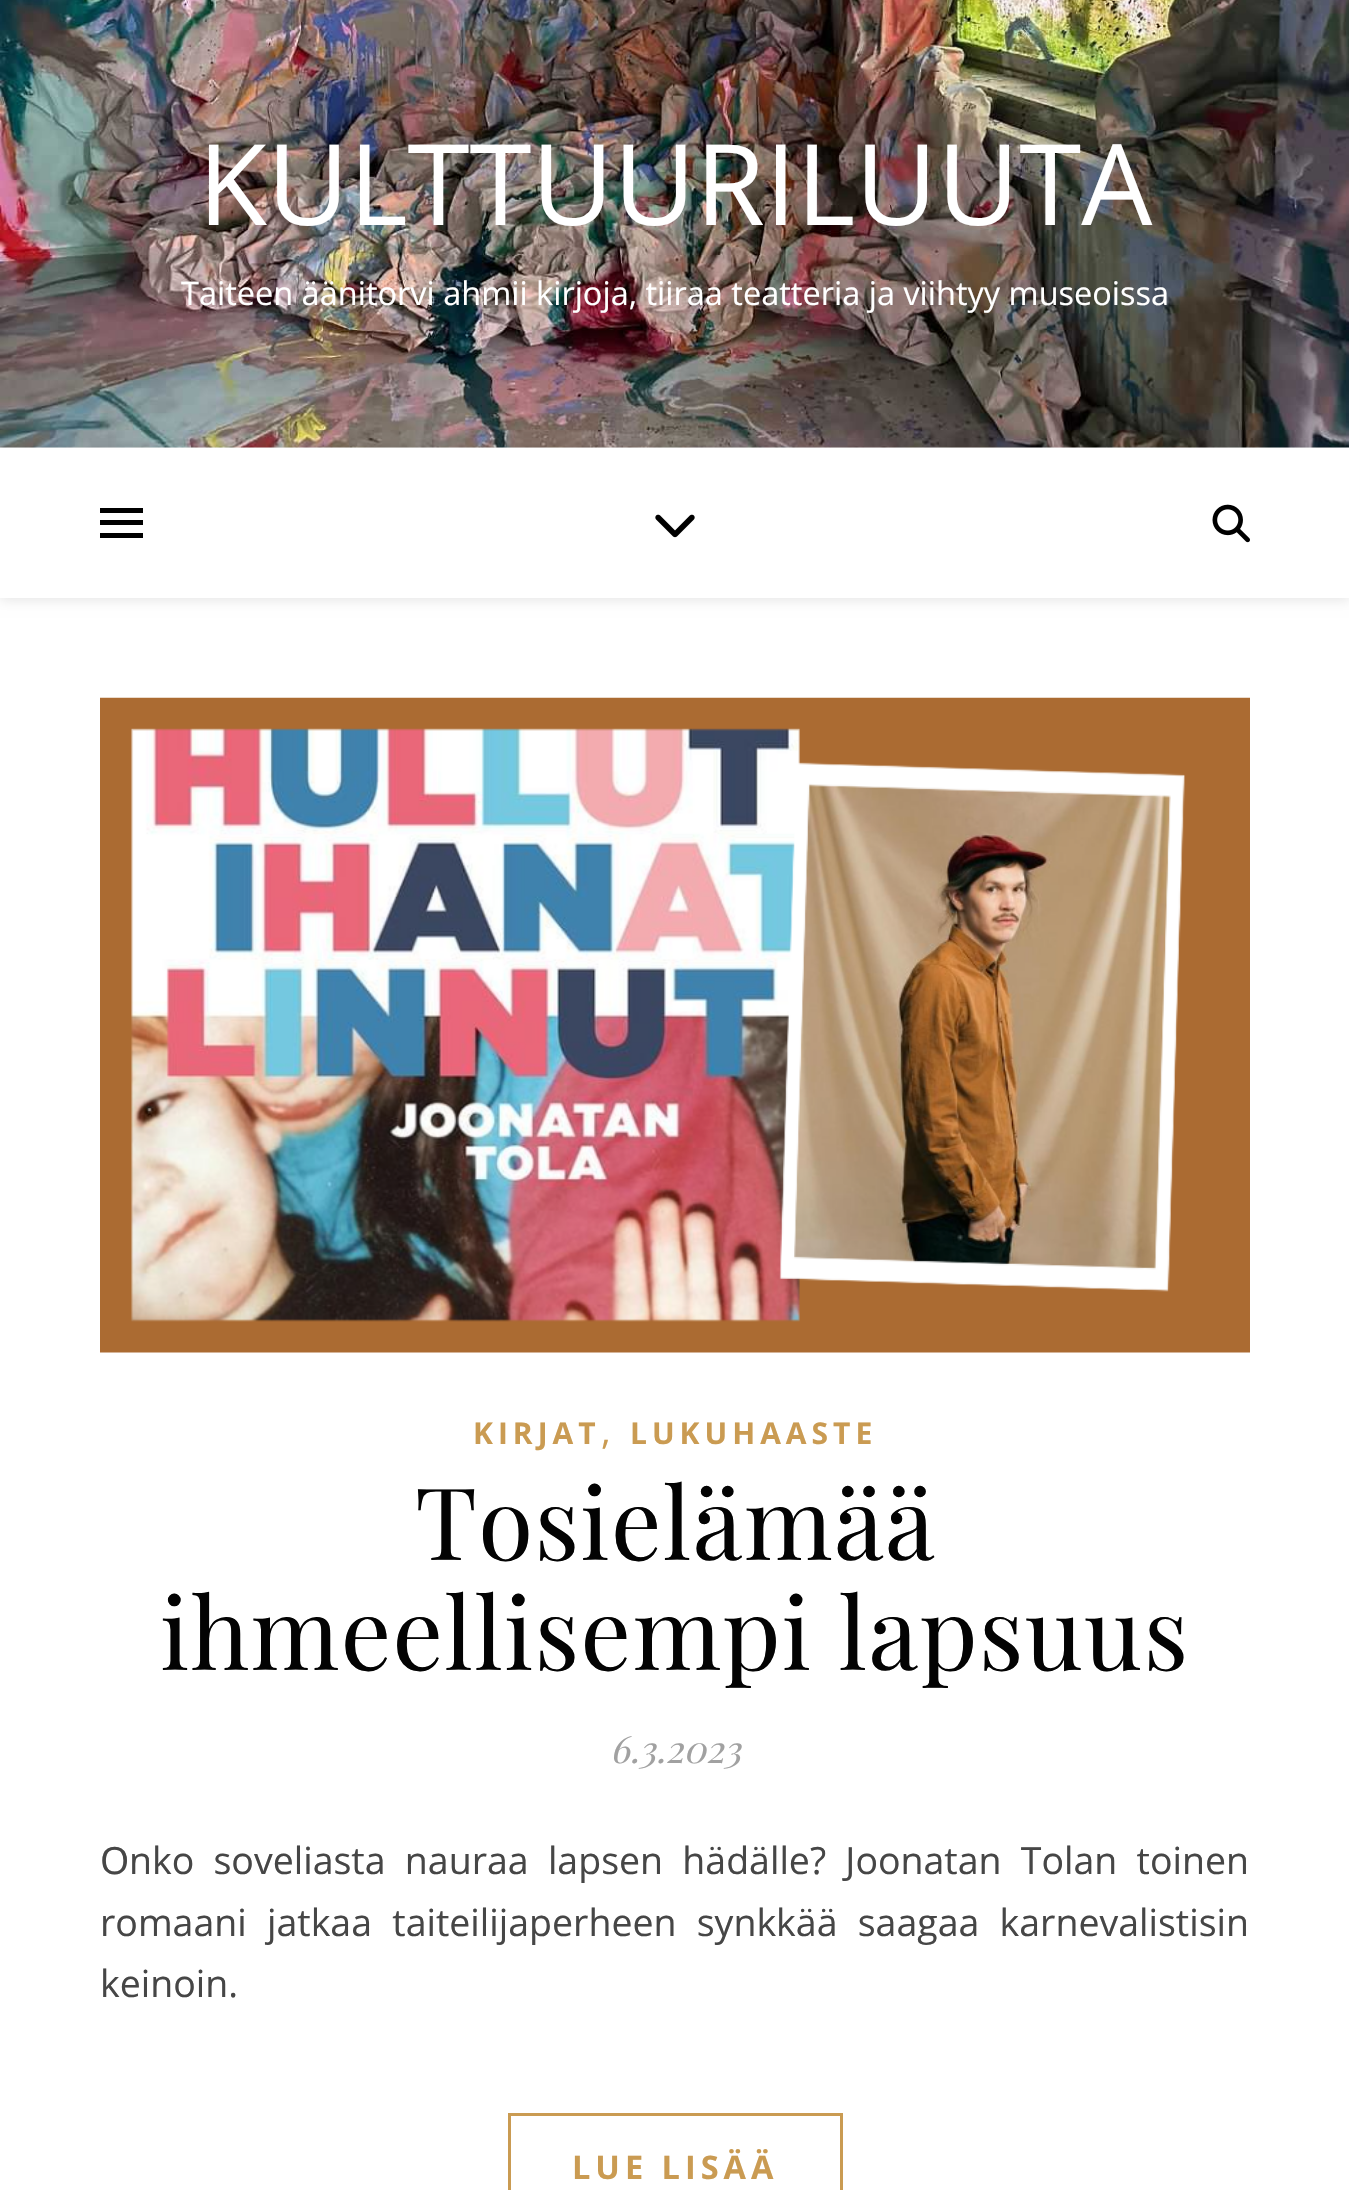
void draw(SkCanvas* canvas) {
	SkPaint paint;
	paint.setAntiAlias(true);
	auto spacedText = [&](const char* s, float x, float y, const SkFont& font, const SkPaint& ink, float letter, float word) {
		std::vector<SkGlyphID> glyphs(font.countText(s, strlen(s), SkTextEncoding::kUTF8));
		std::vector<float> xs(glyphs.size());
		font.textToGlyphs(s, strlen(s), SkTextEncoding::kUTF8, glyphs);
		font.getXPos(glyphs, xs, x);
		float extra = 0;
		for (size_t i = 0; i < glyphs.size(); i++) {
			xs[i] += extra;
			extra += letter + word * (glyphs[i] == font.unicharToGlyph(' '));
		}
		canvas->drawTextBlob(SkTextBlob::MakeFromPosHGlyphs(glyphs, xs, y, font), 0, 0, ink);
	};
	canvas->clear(0xffffffff);
	canvas->drawImageRect(SkImages::DeferredFromEncodedData(SkData::MakeFromFileName("img1.png")), SkRect::MakeXYWH(0, 0, 1349, 448), SkSamplingOptions());
	SkFont f1(fontMgr->matchFamilyStyle("Open Sans", SkFontStyle::Normal()), 112.5);
	f1.setSubpixel(true);
	paint.setColor(0xffffffff);
	canvas->drawString("KULTTUURILUUTA", 198, 225, f1, paint);
	SkFont f2(fontMgr->matchFamilyStyle("Open Sans", SkFontStyle::Normal()), 32.5);
	f2.setSubpixel(true);
	canvas->drawString("Taiteen äänitorvi ahmii kirjoja, tiiraa teatteria ja viihtyy museoissa", 181, 305, f2, paint);
	paint.setColor(0x1a000000);
	paint.setMaskFilter(SkMaskFilter::MakeBlur(kNormal_SkBlurStyle, 6));
	canvas->drawRect(SkRect::MakeXYWH(0, 450, 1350, 150), paint);
	paint.setMaskFilter(nullptr);
	paint.setColor(0xffffffff);
	canvas->drawRect(SkRect::MakeXYWH(0, 448, 1349, 150), paint);
	paint.setColor(0xff000000);
	canvas->drawRect(SkRect::MakeXYWH(100, 508, 43, 5), paint);
	canvas->drawRect(SkRect::MakeXYWH(100, 520, 43, 5), paint);
	canvas->drawRect(SkRect::MakeXYWH(100, 533, 43, 5), paint);
	canvas->drawImageRect(SkImages::DeferredFromEncodedData(SkData::MakeFromFileName("img2.png")), SkRect::MakeXYWH(655, 514, 40, 24), SkSamplingOptions());
	canvas->drawImageRect(SkImages::DeferredFromEncodedData(SkData::MakeFromFileName("img3.png")), SkRect::MakeXYWH(1212, 504, 38, 39), SkSamplingOptions());
	canvas->drawImageRect(SkImages::DeferredFromEncodedData(SkData::MakeFromFileName("img4.png")), SkRect::MakeXYWH(100, 697, 1150, 656), SkSamplingOptions());
	SkFont f3(fontMgr->matchFamilyStyle("Open Sans", SkFontStyle::Bold()), 30);
	f3.setSubpixel(true);
	paint.setColor(0xffca9b52);
	spacedText("KIRJAT", 473, 1444, f3, paint, 5, 0);
	SkFont f4(fontMgr->matchFamilyStyle("Open Sans", SkFontStyle::Normal()), 37.5);
	f4.setSubpixel(true);
	canvas->drawString(",", 601, 1444, f4, paint);
	spacedText("LUKUHAASTE", 630, 1444, f3, paint, 5, 0);
	SkFont f5(fontMgr->matchFamilyStyle("Playfair Display", SkFontStyle::Normal()), 100);
	f5.setSubpixel(true);
	paint.setColor(0xff030303);
	spacedText("Tosielämää", 415, 1560, f5, paint, 1.25, 0);
	spacedText("ihmeellisempi lapsuus", 160, 1670, f5, paint, 1.25, 0);
	SkFont f6(fontMgr->matchFamilyStyle("Playfair Display", SkFontStyle::Italic()), 37.5);
	f6.setSubpixel(true);
	paint.setColor(0xffa1a1a1);
	canvas->drawString("6.3.2023", 610, 1763, f6, paint);
	SkFont f7(fontMgr->matchFamilyStyle("Noto Sans", SkFontStyle::Normal()), 37.5);
	f7.setSubpixel(true);
	paint.setColor(0xff464646);
	canvas->drawString("O", 100, 1874, f7, paint);
	spacedText("nko soveliasta nauraa lapsen hädälle? Joonatan Tolan toinen", 129, 1874, f4, paint, 0, 9.5);
	spacedText("romaani jatkaa taiteilijaperheen synkkää saagaa karnevalistisin", 100, 1936, f4, paint, 0, 10.5);
	canvas->drawString("keinoin.", 100, 1997, f4, paint);
	paint.setStroke(true);
	paint.setStrokeWidth(3);
	paint.setColor(0xffca9b52);
	canvas->drawRect(SkRect::MakeXYWH(509.5, 2114.5, 332, 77), paint);
	SkFont f8(fontMgr->matchFamilyStyle("Open Sans", SkFontStyle::Bold()), 32.5);
	f8.setSubpixel(true);
	paint.setStroke(false);
	spacedText("LUE LISÄÄ", 572, 2179, f8, paint, 5, 0);
}
